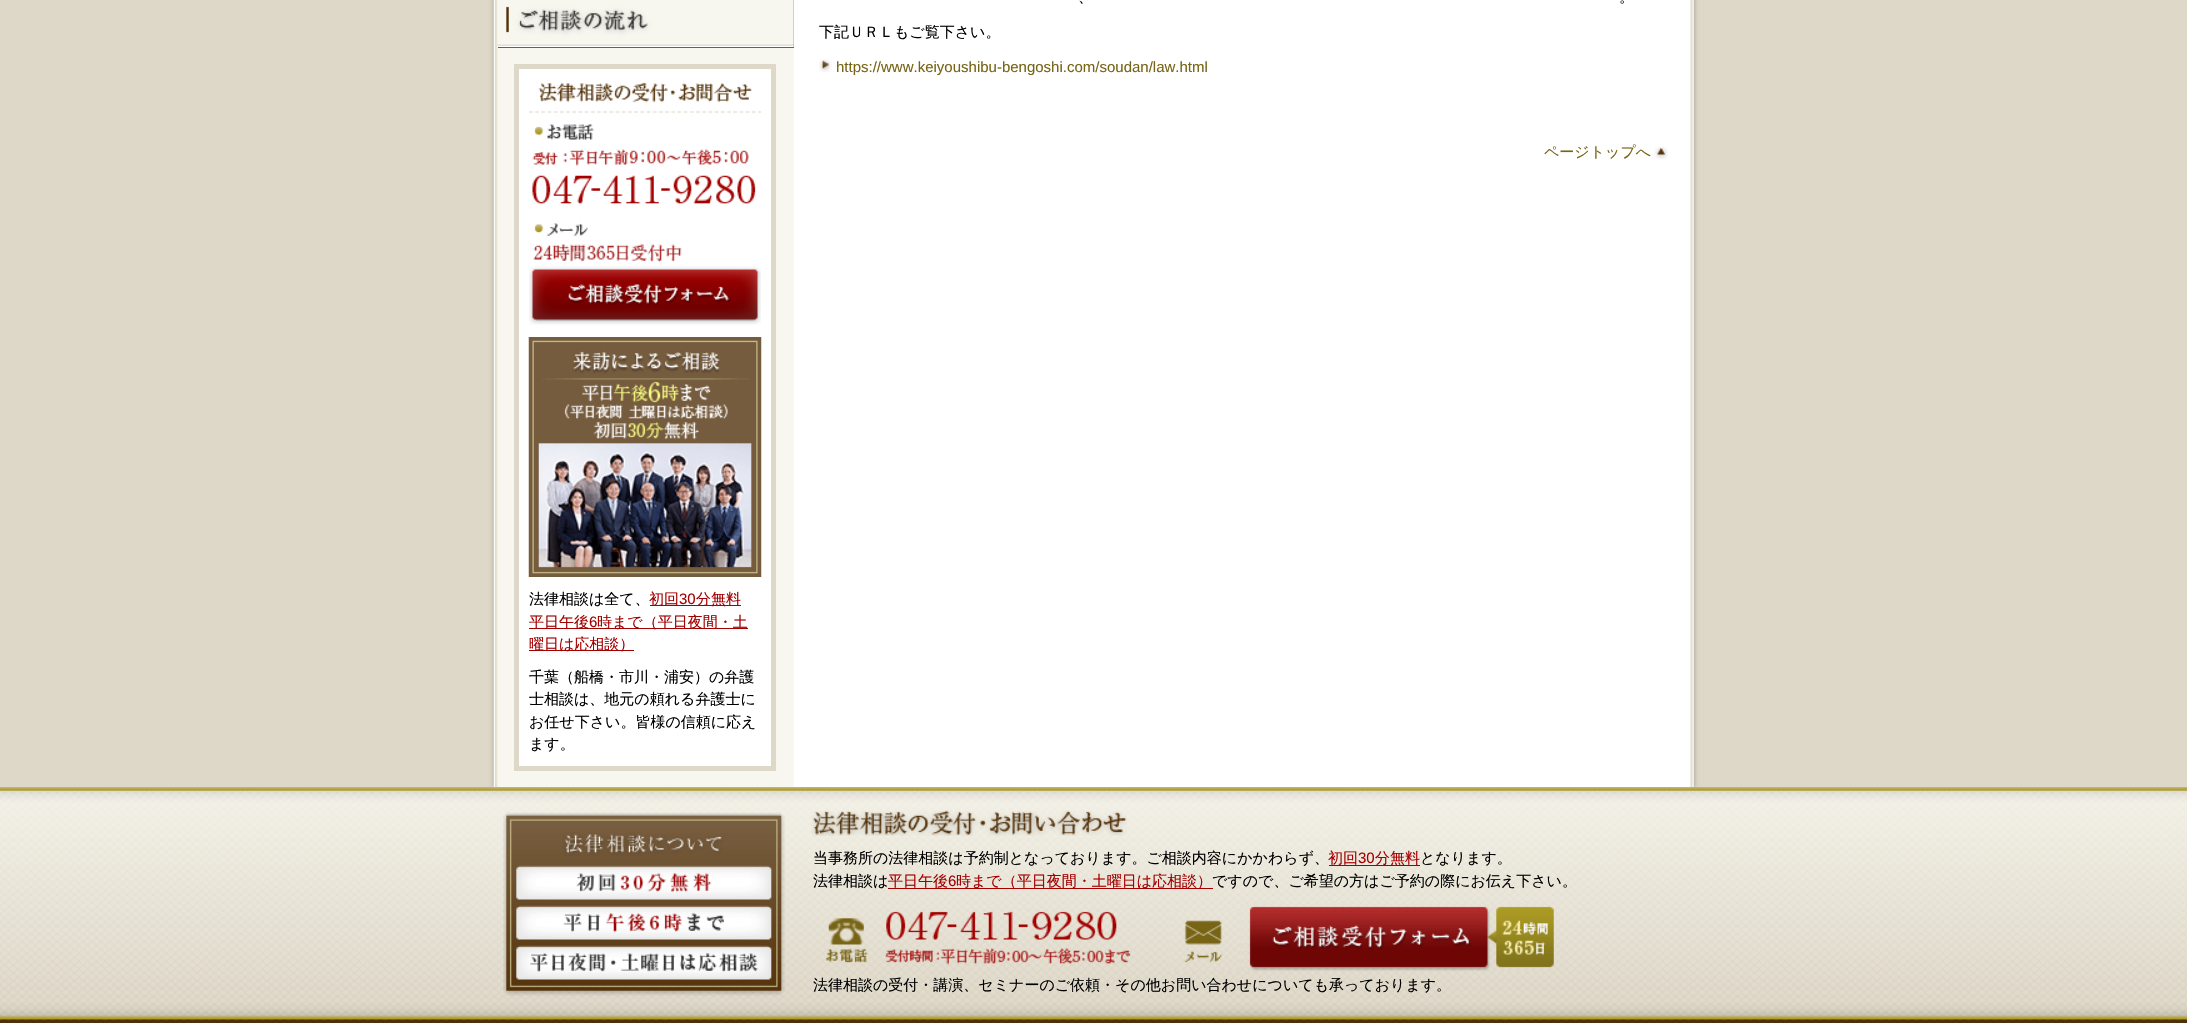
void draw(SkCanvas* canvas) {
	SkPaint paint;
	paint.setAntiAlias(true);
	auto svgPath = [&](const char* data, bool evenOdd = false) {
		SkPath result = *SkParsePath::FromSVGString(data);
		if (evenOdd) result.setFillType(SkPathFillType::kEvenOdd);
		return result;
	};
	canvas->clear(0xffded8c9);
	paint.setColor(0x4d000000);
	paint.setMaskFilter(SkMaskFilter::MakeBlur(kNormal_SkBlurStyle, 2.5));
	canvas->drawRect(SkRect::MakeXYWH(494, -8, 1200, 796), paint);
	paint.setMaskFilter(nullptr);
	canvas->drawImageRect(SkImages::DeferredFromEncodedData(SkData::MakeFromFileName("img1.png")), SkRect::MakeXYWH(493, 0, 1201, 787), SkSamplingOptions());
	SkFont f1(fontMgr->matchFamilyStyle("WenQuanYi Zen Hei", SkFontStyle(500, SkFontStyle::kNormal_Width, SkFontStyle::kUpright_Slant)), 15);
	f1.setSubpixel(true);
	paint.setColor(0xff000000);
	canvas->drawString("、", 1078, 2, f1, paint);
	canvas->drawString("。", 1619, 2, f1, paint);
	canvas->drawString("下記ＵＲＬもご覧下さい。", 819, 37, f1, paint);
	canvas->drawImageRect(SkImages::DeferredFromEncodedData(SkData::MakeFromFileName("img2.png")), SkRect::MakeXYWH(819, 59, 13, 13), SkSamplingOptions());
	SkFont f2(fontMgr->matchFamilyStyle("Liberation Sans", SkFontStyle::Normal()), 15);
	f2.setSubpixel(true);
	paint.setColor(0xff776415);
	canvas->drawString("https://www.keiyoushibu-bengoshi.com/soudan/law.html", 836, 72, f2, paint);
	canvas->drawString("ページトップへ", 1544, 157, f1, paint);
	canvas->drawImageRect(SkImages::DeferredFromEncodedData(SkData::MakeFromFileName("img3.png")), SkRect::MakeXYWH(1654, 146, 14, 14), SkSamplingOptions());
	canvas->drawRect(SkRect::MakeXYWH(498, 0, 296, 48), paint);
	canvas->drawImageRect(SkImages::DeferredFromEncodedData(SkData::MakeFromFileName("img4.png")), SkRect::MakeXYWH(497, 0, 297, 47), SkSamplingOptions());
	paint.setColor(0xffffffff);
	canvas->drawRect(SkRect::MakeXYWH(516.5, 66.5, 257, 702), paint);
	paint.setStroke(true);
	paint.setStrokeWidth(5);
	paint.setColor(0xffded8c9);
	canvas->drawRect(SkRect::MakeXYWH(516.5, 66.5, 257, 702), paint);
	paint.setStrokeWidth(1.2);
	paint.setPathEffect(SkDashPathEffect::Make({{3.75f, 2.44f}}, 0));
	canvas->drawPath(svgPath("M529 112H761"), paint);
	paint.setPathEffect(nullptr);
	canvas->drawImageRect(SkImages::DeferredFromEncodedData(SkData::MakeFromFileName("img5.png")), SkRect::MakeXYWH(538, 82, 214, 21), SkSamplingOptions());
	canvas->drawImageRect(SkImages::DeferredFromEncodedData(SkData::MakeFromFileName("img6.png")), SkRect::MakeXYWH(532, 124, 224, 80), SkSamplingOptions());
	canvas->drawImageRect(SkImages::DeferredFromEncodedData(SkData::MakeFromFileName("img7.png")), SkRect::MakeXYWH(533, 223, 149, 40), SkSamplingOptions());
	canvas->drawImageRect(SkImages::DeferredFromEncodedData(SkData::MakeFromFileName("img8.png")), SkRect::MakeXYWH(529, 266, 232, 59), SkSamplingOptions());
	canvas->drawImageRect(SkImages::DeferredFromEncodedData(SkData::MakeFromFileName("img9.png")), SkRect::MakeXYWH(528, 337, 234, 240), SkSamplingOptions());
	paint.setStroke(false);
	paint.setColor(0xff000000);
	canvas->drawString("法律相談は全て、", 529, 604, f1, paint);
	paint.setColor(0xffa30000);
	canvas->drawRect(SkRect::MakeXYWH(650, 605, 91, 1), paint);
	canvas->drawString("初回", 649, 604, f1, paint);
	canvas->drawString("30", 679, 604, f2, paint);
	canvas->drawString("分無料", 696, 604, f1, paint);
	canvas->drawRect(SkRect::MakeXYWH(529, 628, 219, 1), paint);
	canvas->drawString("平日午後", 529, 627, f1, paint);
	canvas->drawString("6", 589, 627, f2, paint);
	canvas->drawString("時まで（平日夜間・土", 597, 627, f1, paint);
	canvas->drawRect(SkRect::MakeXYWH(529, 650, 105, 1), paint);
	canvas->drawString("曜日は応相談）", 529, 649, f1, paint);
	paint.setColor(0xff000000);
	canvas->drawString("千葉（船橋・市川・浦安）の弁護", 529, 682, f1, paint);
	canvas->drawString("士相談は、地元の頼れる弁護士に", 529, 704, f1, paint);
	canvas->drawString("お任せ下さい。皆様の信頼に応え", 529, 727, f1, paint);
	canvas->drawString("ます。", 529, 749, f1, paint);
	canvas->drawImageRect(SkImages::DeferredFromEncodedData(SkData::MakeFromFileName("img10.png")), SkRect::MakeXYWH(0, 787, 2187, 236), SkSamplingOptions());
	canvas->drawImageRect(SkImages::DeferredFromEncodedData(SkData::MakeFromFileName("img11.png")), SkRect::MakeXYWH(503, 812, 282, 184), SkSamplingOptions());
	canvas->drawImageRect(SkImages::DeferredFromEncodedData(SkData::MakeFromFileName("img12.png")), SkRect::MakeXYWH(811, 810, 316, 26), SkSamplingOptions());
	canvas->drawString("当事務所の法律相談は予約制となっております。ご相談内容にかかわらず、", 813, 863, f1, paint);
	paint.setColor(0xffa30000);
	canvas->drawString("初回", 1328, 863, f1, paint);
	canvas->drawString("30", 1358, 863, f2, paint);
	canvas->drawRect(SkRect::MakeXYWH(1329, 865, 91, 1), paint);
	canvas->drawString("分無料", 1375, 863, f1, paint);
	paint.setColor(0xff000000);
	canvas->drawString("となります。", 1420, 863, f1, paint);
	canvas->drawString("法律相談は", 813, 886, f1, paint);
	paint.setColor(0xffa30000);
	canvas->drawString("平日午後", 888, 886, f1, paint);
	canvas->drawString("6", 948, 886, f2, paint);
	canvas->drawRect(SkRect::MakeXYWH(888, 888, 325, 1), paint);
	canvas->drawString("時まで（平日夜間・土曜日は応相談）", 956, 886, f1, paint);
	paint.setColor(0xff000000);
	canvas->drawString("ですので、ご希望の方はご予約の際にお伝え下さい。", 1212, 886, f1, paint);
	canvas->drawString("法律相談の受付・講演、セミナーのご依頼・その他お問い合わせについても承っております。", 813, 990, f1, paint);
	canvas->drawImageRect(SkImages::DeferredFromEncodedData(SkData::MakeFromFileName("img13.png")), SkRect::MakeXYWH(826, 911, 305, 54), SkSamplingOptions());
	canvas->drawImageRect(SkImages::DeferredFromEncodedData(SkData::MakeFromFileName("img14.png")), SkRect::MakeXYWH(1169, 911, 71, 60), SkSamplingOptions());
	canvas->drawImageRect(SkImages::DeferredFromEncodedData(SkData::MakeFromFileName("img15.png")), SkRect::MakeXYWH(1246, 903, 308, 68), SkSamplingOptions());
}
